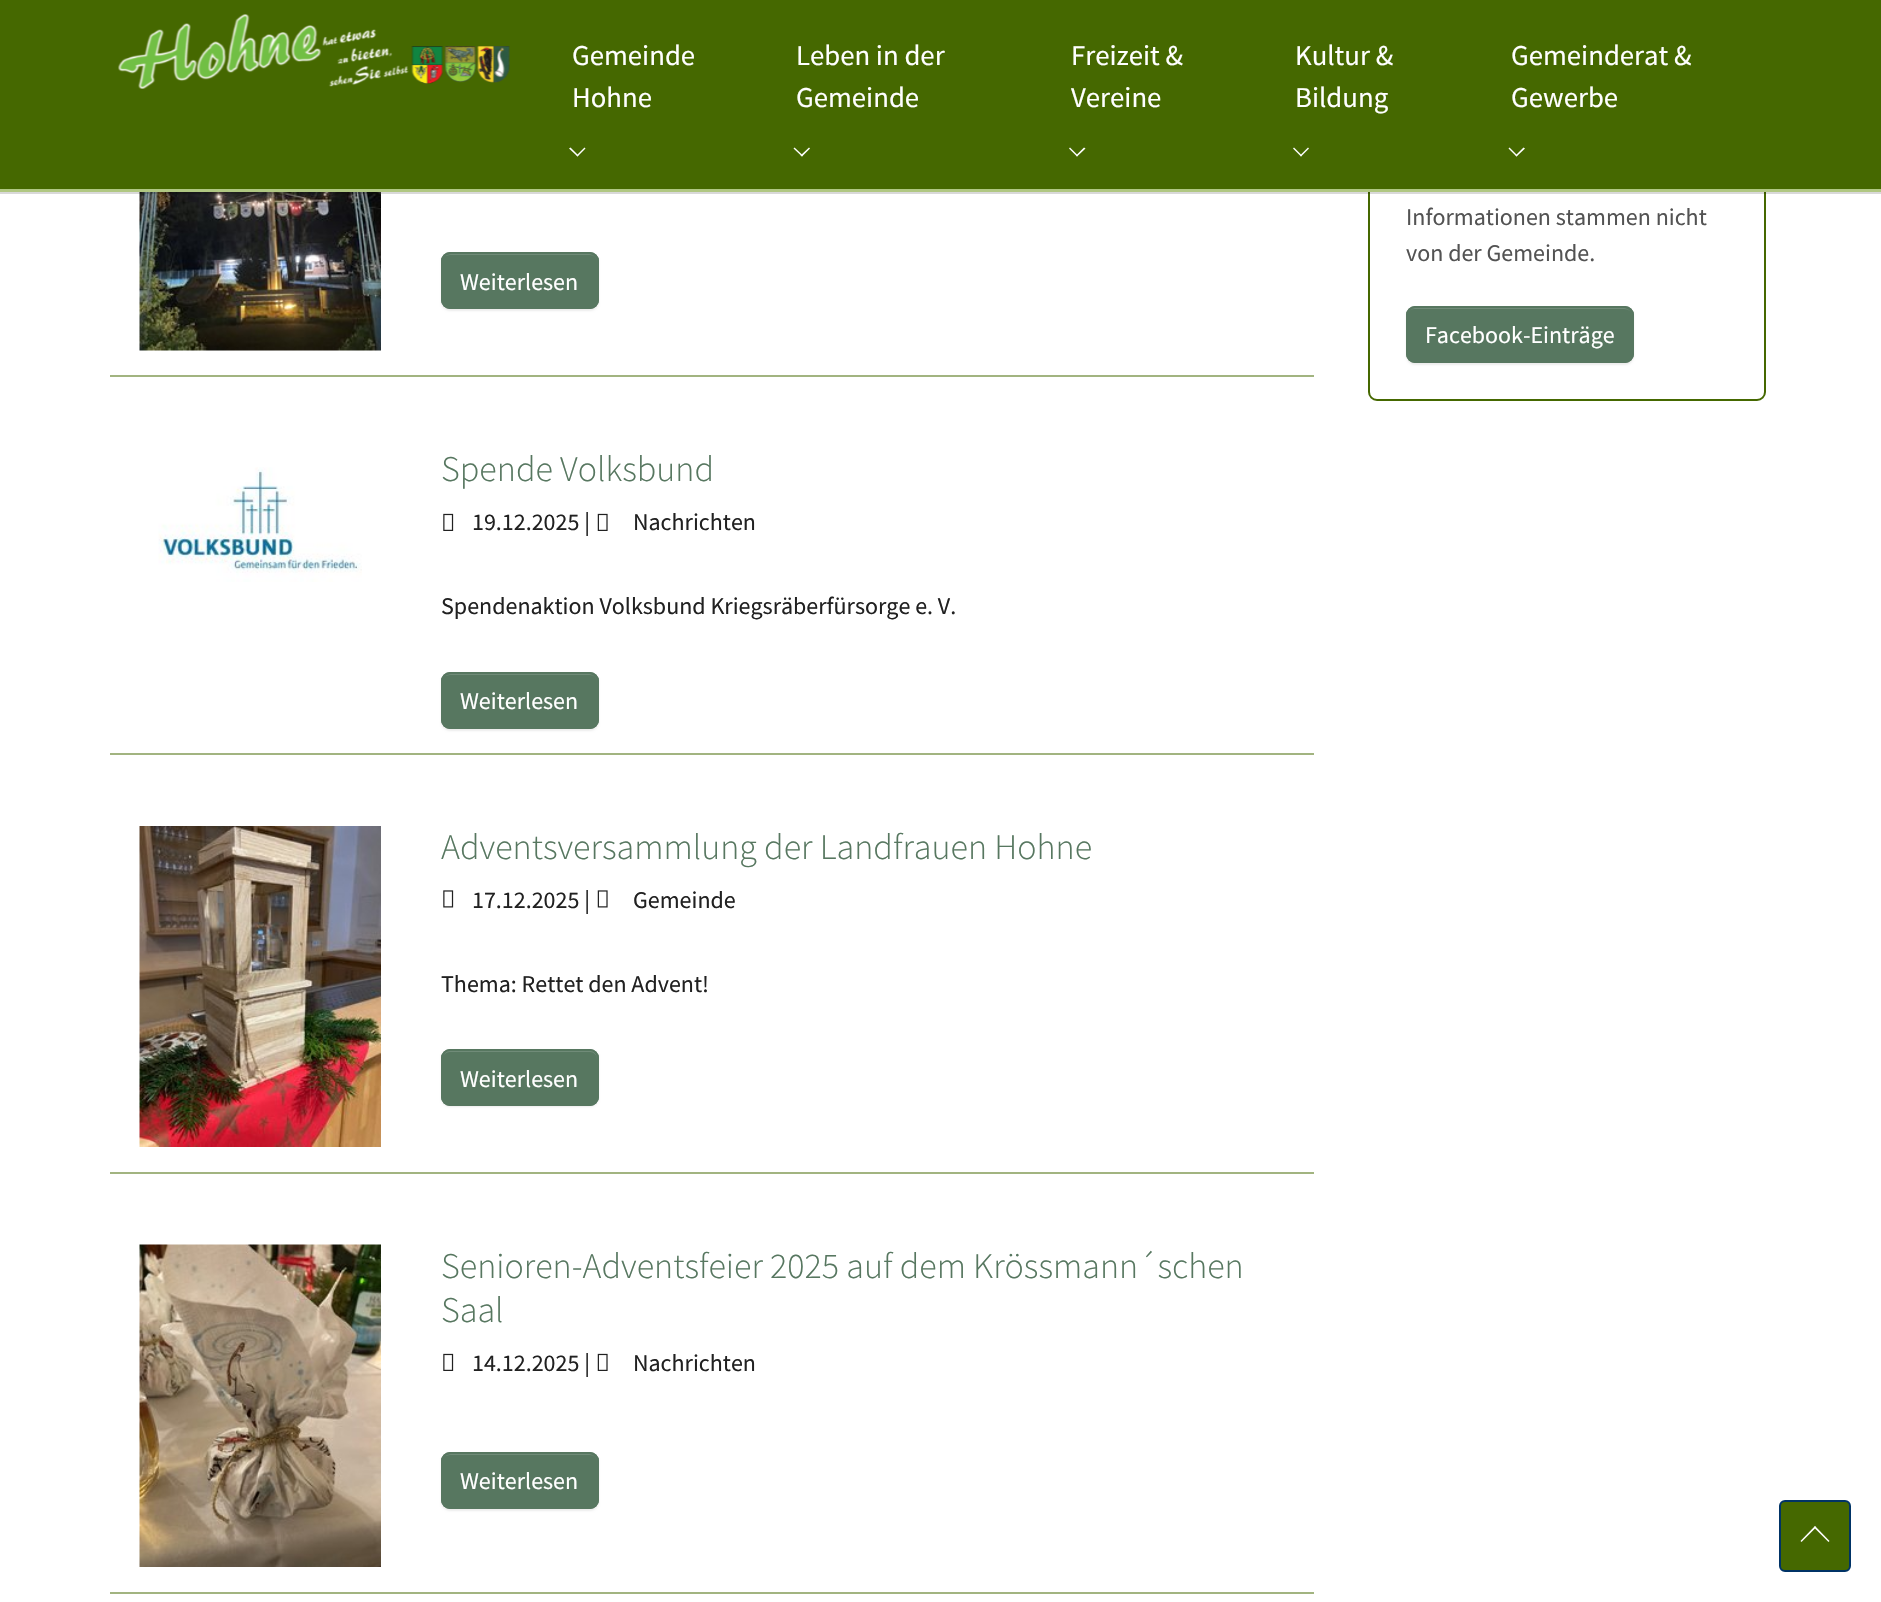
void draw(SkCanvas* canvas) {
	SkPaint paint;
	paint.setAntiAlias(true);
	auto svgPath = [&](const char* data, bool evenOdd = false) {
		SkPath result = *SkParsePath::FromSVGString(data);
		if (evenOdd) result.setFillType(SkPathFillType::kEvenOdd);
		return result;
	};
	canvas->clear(0xffffffff);
	canvas->drawImageRect(SkImages::DeferredFromEncodedData(SkData::MakeFromFileName("img2.png")), SkRect::MakeXYWH(139, 192, 242, 159), SkSamplingOptions());
	paint.setStroke(true);
	paint.setStrokeWidth(2);
	paint.setColor(0xff456800);
	canvas->drawRoundRect(SkRect::MakeXYWH(1369, -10, 396, 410), 8, 8, paint);
	paint.setStroke(false);
	paint.setColor(0x26000000);
	canvas->drawRect(SkRect::MakeXYWH(0, 192, 1881, 2), paint);
	paint.setColor(0xff456800);
	canvas->drawRect(SkRect::MakeXYWH(0, 0, 1881, 189), paint);
	paint.setColor(0xffb0c782);
	canvas->drawRect(SkRect::MakeXYWH(0, 189, 1881, 3), paint);
	canvas->drawImageRect(SkImages::DeferredFromEncodedData(SkData::MakeFromFileName("img1.png")), SkRect::MakeXYWH(118, 14, 392, 75), SkSamplingOptions());
	SkFont f1(fontMgr->matchFamilyStyle("Source Sans Pro", SkFontStyle::Normal()), 28.75);
	f1.setSubpixel(true);
	paint.setColor(0xffffffff);
	canvas->drawString("Gemeinde", 572, 65, f1, paint);
	canvas->drawString("Hohne", 572, 107, f1, paint);
	canvas->drawPath(svgPath("M577.5 156.5L569 148.5L570.5 147.5L578.5 155.5Z"), paint);
	canvas->drawPath(svgPath("M577.5 156.5L576.5 155.5L584.5 147.5L585.5 148.5Z"), paint);
	canvas->drawString("Leben in der", 796, 65, f1, paint);
	canvas->drawString("Gemeinde", 796, 107, f1, paint);
	canvas->drawPath(svgPath("M802 156.5L793.5 148.5L794.5 147.5L803 155.5Z"), paint);
	canvas->drawPath(svgPath("M802 156.5L800.5 155.5L809 147.5L810 148.5Z"), paint);
	canvas->drawString("Freizeit &", 1071, 65, f1, paint);
	canvas->drawString("Vereine", 1071, 107, f1, paint);
	canvas->drawPath(svgPath("M1077 156.5L1069 148.5L1070 147.5L1078 155.5Z"), paint);
	canvas->drawPath(svgPath("M1077 156.5L1076 155.5L1084 147.5L1085.5 148.5Z"), paint);
	canvas->drawString("Kultur &", 1295, 65, f1, paint);
	canvas->drawString("Bildung", 1295, 107, f1, paint);
	canvas->drawPath(svgPath("M1301 156.5L1293 148.5L1294 147.5L1302 155.5Z"), paint);
	canvas->drawPath(svgPath("M1301 156.5L1300 155.5L1308 147.5L1309 148.5Z"), paint);
	canvas->drawString("Gemeinderat &", 1511, 65, f1, paint);
	canvas->drawString("Gewerbe", 1511, 107, f1, paint);
	canvas->drawPath(svgPath("M1516.5 156.5L1508.5 148.5L1509.5 147.5L1517.5 155.5Z"), paint);
	canvas->drawPath(svgPath("M1516.5 156.5L1515.5 155.5L1523.5 147.5L1525 148.5Z"), paint);
	paint.setColor(0xffa2b480);
	canvas->drawRect(SkRect::MakeXYWH(110, 375, 1204, 2), paint);
	paint.setColor(0x12000000);
	paint.setMaskFilter(SkMaskFilter::MakeBlur(kNormal_SkBlurStyle, 1));
	canvas->drawRoundRect(SkRect::MakeXYWH(441, 254, 158, 57), 9, 9, paint);
	paint.setMaskFilter(nullptr);
	paint.setColor(0xff577760);
	canvas->drawRoundRect(SkRect::MakeXYWH(441, 252, 158, 57), 9, 9, paint);
	paint.setColor(0xff708b78);
	canvas->drawPath(svgPath("M450 255H590C594 255 597 258 597 262C597 258 593 254 589 254H451C449 254 447 255 445 256C447 256 448 255 450 255Z"), paint);
	paint.setStroke(true);
	paint.setColor(0xff577760);
	canvas->drawRoundRect(SkRect::MakeXYWH(442, 253, 156, 55), 8, 8, paint);
	SkFont f2(fontMgr->matchFamilyStyle("Source Sans Pro", SkFontStyle::Normal()), 24);
	f2.setSubpixel(true);
	paint.setStroke(false);
	paint.setColor(0xffffffff);
	canvas->drawString("Weiterlesen", 460, 290, f2, paint);
	paint.setColor(0xffa2b480);
	canvas->drawRect(SkRect::MakeXYWH(110, 753, 1204, 2), paint);
	canvas->drawImageRect(SkImages::DeferredFromEncodedData(SkData::MakeFromFileName("img3.png")), SkRect::MakeXYWH(158, 467, 204, 115), SkSamplingOptions());
	SkFont f3(fontMgr->matchFamilyStyle("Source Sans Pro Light", SkFontStyle(300, SkFontStyle::kNormal_Width, SkFontStyle::kUpright_Slant)), 36);
	f3.setSubpixel(true);
	paint.setColor(0xff577760);
	canvas->drawString("Spende Volksbund", 441, 481, f3, paint);
	canvas->drawImageRect(SkImages::DeferredFromEncodedData(SkData::MakeFromFileName("img4.png")), SkRect::MakeXYWH(443, 513, 11, 18), SkSamplingOptions());
	paint.setColor(0xff212121);
	canvas->drawString("19.12.2025 |", 472, 530, f2, paint);
	canvas->drawImageRect(SkImages::DeferredFromEncodedData(SkData::MakeFromFileName("img5.png")), SkRect::MakeXYWH(597, 513, 11, 18), SkSamplingOptions());
	canvas->drawString("Nachrichten", 633, 530, f2, paint);
	canvas->drawString("Spendenaktion Volksbund Kriegsräberfürsorge e. V.", 441, 614, f2, paint);
	paint.setColor(0x12000000);
	paint.setMaskFilter(SkMaskFilter::MakeBlur(kNormal_SkBlurStyle, 1));
	canvas->drawRoundRect(SkRect::MakeXYWH(441, 674, 158, 57), 9, 9, paint);
	paint.setMaskFilter(nullptr);
	paint.setColor(0xff577760);
	canvas->drawRoundRect(SkRect::MakeXYWH(441, 672, 158, 57), 9, 9, paint);
	paint.setColor(0xff708b78);
	canvas->drawPath(svgPath("M450 675H590C594 675 597 678 597 682C597 678 593 674 589 674H451C449 674 447 675 445 676C447 676 448 675 450 675Z"), paint);
	paint.setStroke(true);
	paint.setColor(0xff577760);
	canvas->drawRoundRect(SkRect::MakeXYWH(442, 673, 156, 55), 8, 8, paint);
	paint.setStroke(false);
	paint.setColor(0xffffffff);
	canvas->drawString("Weiterlesen", 460, 709, f2, paint);
	paint.setColor(0xffa2b480);
	canvas->drawRect(SkRect::MakeXYWH(110, 1172, 1204, 2), paint);
	canvas->drawImageRect(SkImages::DeferredFromEncodedData(SkData::MakeFromFileName("img6.png")), SkRect::MakeXYWH(139, 826, 242, 321), SkSamplingOptions());
	paint.setColor(0xff577760);
	canvas->drawString("Adventsversammlung der Landfrauen Hohne", 441, 859, f3, paint);
	canvas->drawImageRect(SkImages::DeferredFromEncodedData(SkData::MakeFromFileName("img7.png")), SkRect::MakeXYWH(443, 890, 11, 18), SkSamplingOptions());
	paint.setColor(0xff212121);
	canvas->drawString("17.12.2025 |", 472, 908, f2, paint);
	canvas->drawImageRect(SkImages::DeferredFromEncodedData(SkData::MakeFromFileName("img8.png")), SkRect::MakeXYWH(597, 890, 11, 18), SkSamplingOptions());
	canvas->drawString("Gemeinde", 633, 908, f2, paint);
	canvas->drawString("Thema: Rettet den Advent!", 441, 992, f2, paint);
	paint.setColor(0x12000000);
	paint.setMaskFilter(SkMaskFilter::MakeBlur(kNormal_SkBlurStyle, 1));
	canvas->drawRoundRect(SkRect::MakeXYWH(441, 1050, 158, 57), 9, 9, paint);
	paint.setMaskFilter(nullptr);
	paint.setColor(0xff577760);
	canvas->drawRoundRect(SkRect::MakeXYWH(441, 1049, 158, 57), 9, 9, paint);
	paint.setColor(0xff708b78);
	canvas->drawPath(svgPath("M450 1052H590C594 1052 597 1055 597 1059V1058C597 1054 593 1050 589 1050H451C448 1050 445 1052 444 1055C445 1053 448 1052 450 1052Z"), paint);
	paint.setStroke(true);
	paint.setColor(0xff577760);
	canvas->drawRoundRect(SkRect::MakeXYWH(442, 1050, 156, 55), 8, 8, paint);
	paint.setStroke(false);
	paint.setColor(0xffffffff);
	canvas->drawString("Weiterlesen", 460, 1087, f2, paint);
	paint.setColor(0xffa2b480);
	canvas->drawRect(SkRect::MakeXYWH(110, 1592, 1204, 2), paint);
	canvas->drawImageRect(SkImages::DeferredFromEncodedData(SkData::MakeFromFileName("img9.png")), SkRect::MakeXYWH(139, 1244, 242, 323), SkSamplingOptions());
	paint.setColor(0xff577760);
	canvas->drawString("Senioren-Adventsfeier 2025 auf dem Krössmann´schen", 441, 1278, f3, paint);
	canvas->drawString("Saal", 441, 1322, f3, paint);
	canvas->drawImageRect(SkImages::DeferredFromEncodedData(SkData::MakeFromFileName("img4.png")), SkRect::MakeXYWH(443, 1353, 11, 18), SkSamplingOptions());
	paint.setColor(0xff212121);
	canvas->drawString("14.12.2025 |", 472, 1371, f2, paint);
	canvas->drawImageRect(SkImages::DeferredFromEncodedData(SkData::MakeFromFileName("img5.png")), SkRect::MakeXYWH(597, 1353, 11, 18), SkSamplingOptions());
	canvas->drawString("Nachrichten", 633, 1371, f2, paint);
	paint.setColor(0x12000000);
	paint.setMaskFilter(SkMaskFilter::MakeBlur(kNormal_SkBlurStyle, 1));
	canvas->drawRoundRect(SkRect::MakeXYWH(441, 1454, 158, 57), 9, 9, paint);
	paint.setMaskFilter(nullptr);
	paint.setColor(0xff577760);
	canvas->drawRoundRect(SkRect::MakeXYWH(441, 1452, 158, 57), 9, 9, paint);
	paint.setColor(0xff708b78);
	canvas->drawPath(svgPath("M450 1455H590C594 1455 597 1458 597 1462C597 1458 593 1454 589 1454H451C449 1454 447 1455 445 1456C447 1456 448 1455 450 1455Z"), paint);
	paint.setStroke(true);
	paint.setColor(0xff577760);
	canvas->drawRoundRect(SkRect::MakeXYWH(442, 1453, 156, 55), 8, 8, paint);
	paint.setStroke(false);
	paint.setColor(0xffffffff);
	canvas->drawString("Weiterlesen", 460, 1489, f2, paint);
	paint.setColor(0xff535353);
	canvas->drawString("Informationen stammen nicht", 1406, 225, f2, paint);
	canvas->drawString("von der Gemeinde.", 1406, 261, f2, paint);
	paint.setColor(0x12000000);
	paint.setMaskFilter(SkMaskFilter::MakeBlur(kNormal_SkBlurStyle, 1));
	canvas->drawRoundRect(SkRect::MakeXYWH(1406, 308, 228, 57), 9, 9, paint);
	paint.setMaskFilter(nullptr);
	paint.setColor(0xff577760);
	canvas->drawRoundRect(SkRect::MakeXYWH(1406, 306, 228, 57), 9, 9, paint);
	paint.setColor(0xff708b78);
	canvas->drawPath(svgPath("M1414 309H1624C1629 309 1632 312 1632 316C1632 312 1628 308 1624 308H1415C1411 308 1407 312 1407 316C1407 312 1410 309 1414 309Z"), paint);
	paint.setStroke(true);
	paint.setColor(0xff577760);
	canvas->drawRoundRect(SkRect::MakeXYWH(1407, 307, 226, 55), 8, 8, paint);
	paint.setStroke(false);
	paint.setColor(0xffffffff);
	canvas->drawString("Facebook-Einträge", 1425, 343, f2, paint);
	paint.setColor(0xff456800);
	canvas->drawRoundRect(SkRect::MakeXYWH(1780, 1501, 70, 70), 5, 5, paint);
	paint.setStroke(true);
	paint.setColor(0xff003366);
	canvas->drawRoundRect(SkRect::MakeXYWH(1780, 1501, 70, 70), 5, 5, paint);
	paint.setStroke(false);
	paint.setColor(0xffffffff);
	canvas->drawPath(svgPath("M1815 1526L1829.5 1541L1828.5 1542L1814 1527.5Z"), paint);
	canvas->drawPath(svgPath("M1815 1526L1816 1527.5L1801.5 1542L1800.5 1541Z"), paint);
}
